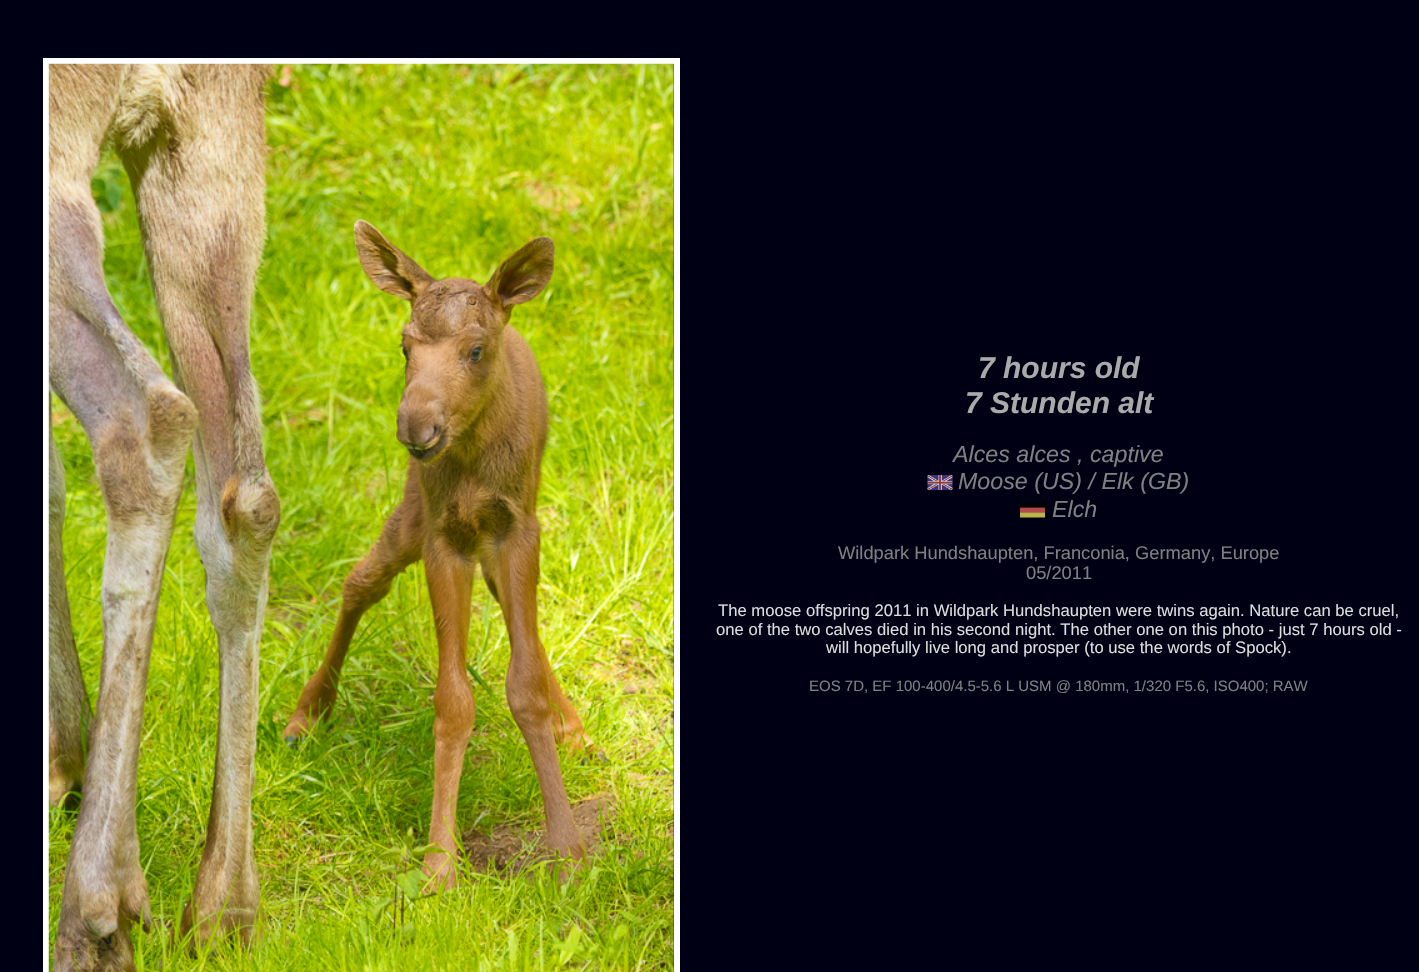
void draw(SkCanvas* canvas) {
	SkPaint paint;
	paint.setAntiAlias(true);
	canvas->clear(0xff000015);
	paint.setStroke(true);
	paint.setStrokeWidth(6);
	paint.setColor(0xffffffff);
	canvas->drawRect(SkRect::MakeXYWH(46, 61, 631, 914), paint);
	canvas->drawImageRect(SkImages::DeferredFromEncodedData(SkData::MakeFromFileName("img1.png")), SkRect::MakeXYWH(48, 63, 626, 909), SkSamplingOptions());
	SkFont f1(fontMgr->matchFamilyStyle("Liberation Sans", SkFontStyle::BoldItalic()), 30);
	f1.setSubpixel(true);
	paint.setStroke(false);
	paint.setColor(0xffaaaaaa);
	canvas->drawString("7 hours old", 978, 378, f1, paint);
	canvas->drawString("7 Stunden alt", 965, 413, f1, paint);
	SkFont f2(fontMgr->matchFamilyStyle("Liberation Sans", SkFontStyle::Italic()), 23.25);
	f2.setSubpixel(true);
	paint.setColor(0xff808080);
	canvas->drawString("Alces alces , captive", 953, 462, f2, paint);
	canvas->drawImageRect(SkImages::DeferredFromEncodedData(SkData::MakeFromFileName("img2.png")), SkRect::MakeXYWH(927, 475, 26, 15), SkSamplingOptions());
	canvas->drawString("Moose (US) / Elk (GB)", 958, 489, f2, paint);
	canvas->drawImageRect(SkImages::DeferredFromEncodedData(SkData::MakeFromFileName("img3.png")), SkRect::MakeXYWH(1020, 502, 25, 16), SkSamplingOptions());
	canvas->drawString("Elch", 1052, 517, f2, paint);
	SkFont f3(fontMgr->matchFamilyStyle("Liberation Sans", SkFontStyle::Normal()), 18.3);
	f3.setSubpixel(true);
	canvas->drawString("Wildpark Hundshaupten, Franconia, Germany, Europe", 838, 559, f3, paint);
	canvas->drawString("05/2011", 1026, 579, f3, paint);
	SkFont f4(fontMgr->matchFamilyStyle("Liberation Sans", SkFontStyle::Normal()), 16.65);
	f4.setSubpixel(true);
	paint.setColor(0xffdddddd);
	canvas->drawString("The moose offspring 2011 in Wildpark Hundshaupten were twins again. Nature can be cruel,", 718, 616, f4, paint);
	canvas->drawString("one of the two calves died in his second night. The other one on this photo - just 7 hours old -", 716, 635, f4, paint);
	canvas->drawString("will hopefully live long and prosper (to use the words of Spock).", 826, 653, f4, paint);
	SkFont f5(fontMgr->matchFamilyStyle("Liberation Sans", SkFontStyle::Normal()), 15);
	f5.setSubpixel(true);
	paint.setColor(0xff808080);
	canvas->drawString("EOS 7D, EF 100-400/4.5-5.6 L USM @ 180mm, 1/320 F5.6, ISO400; RAW", 809, 691, f5, paint);
}
